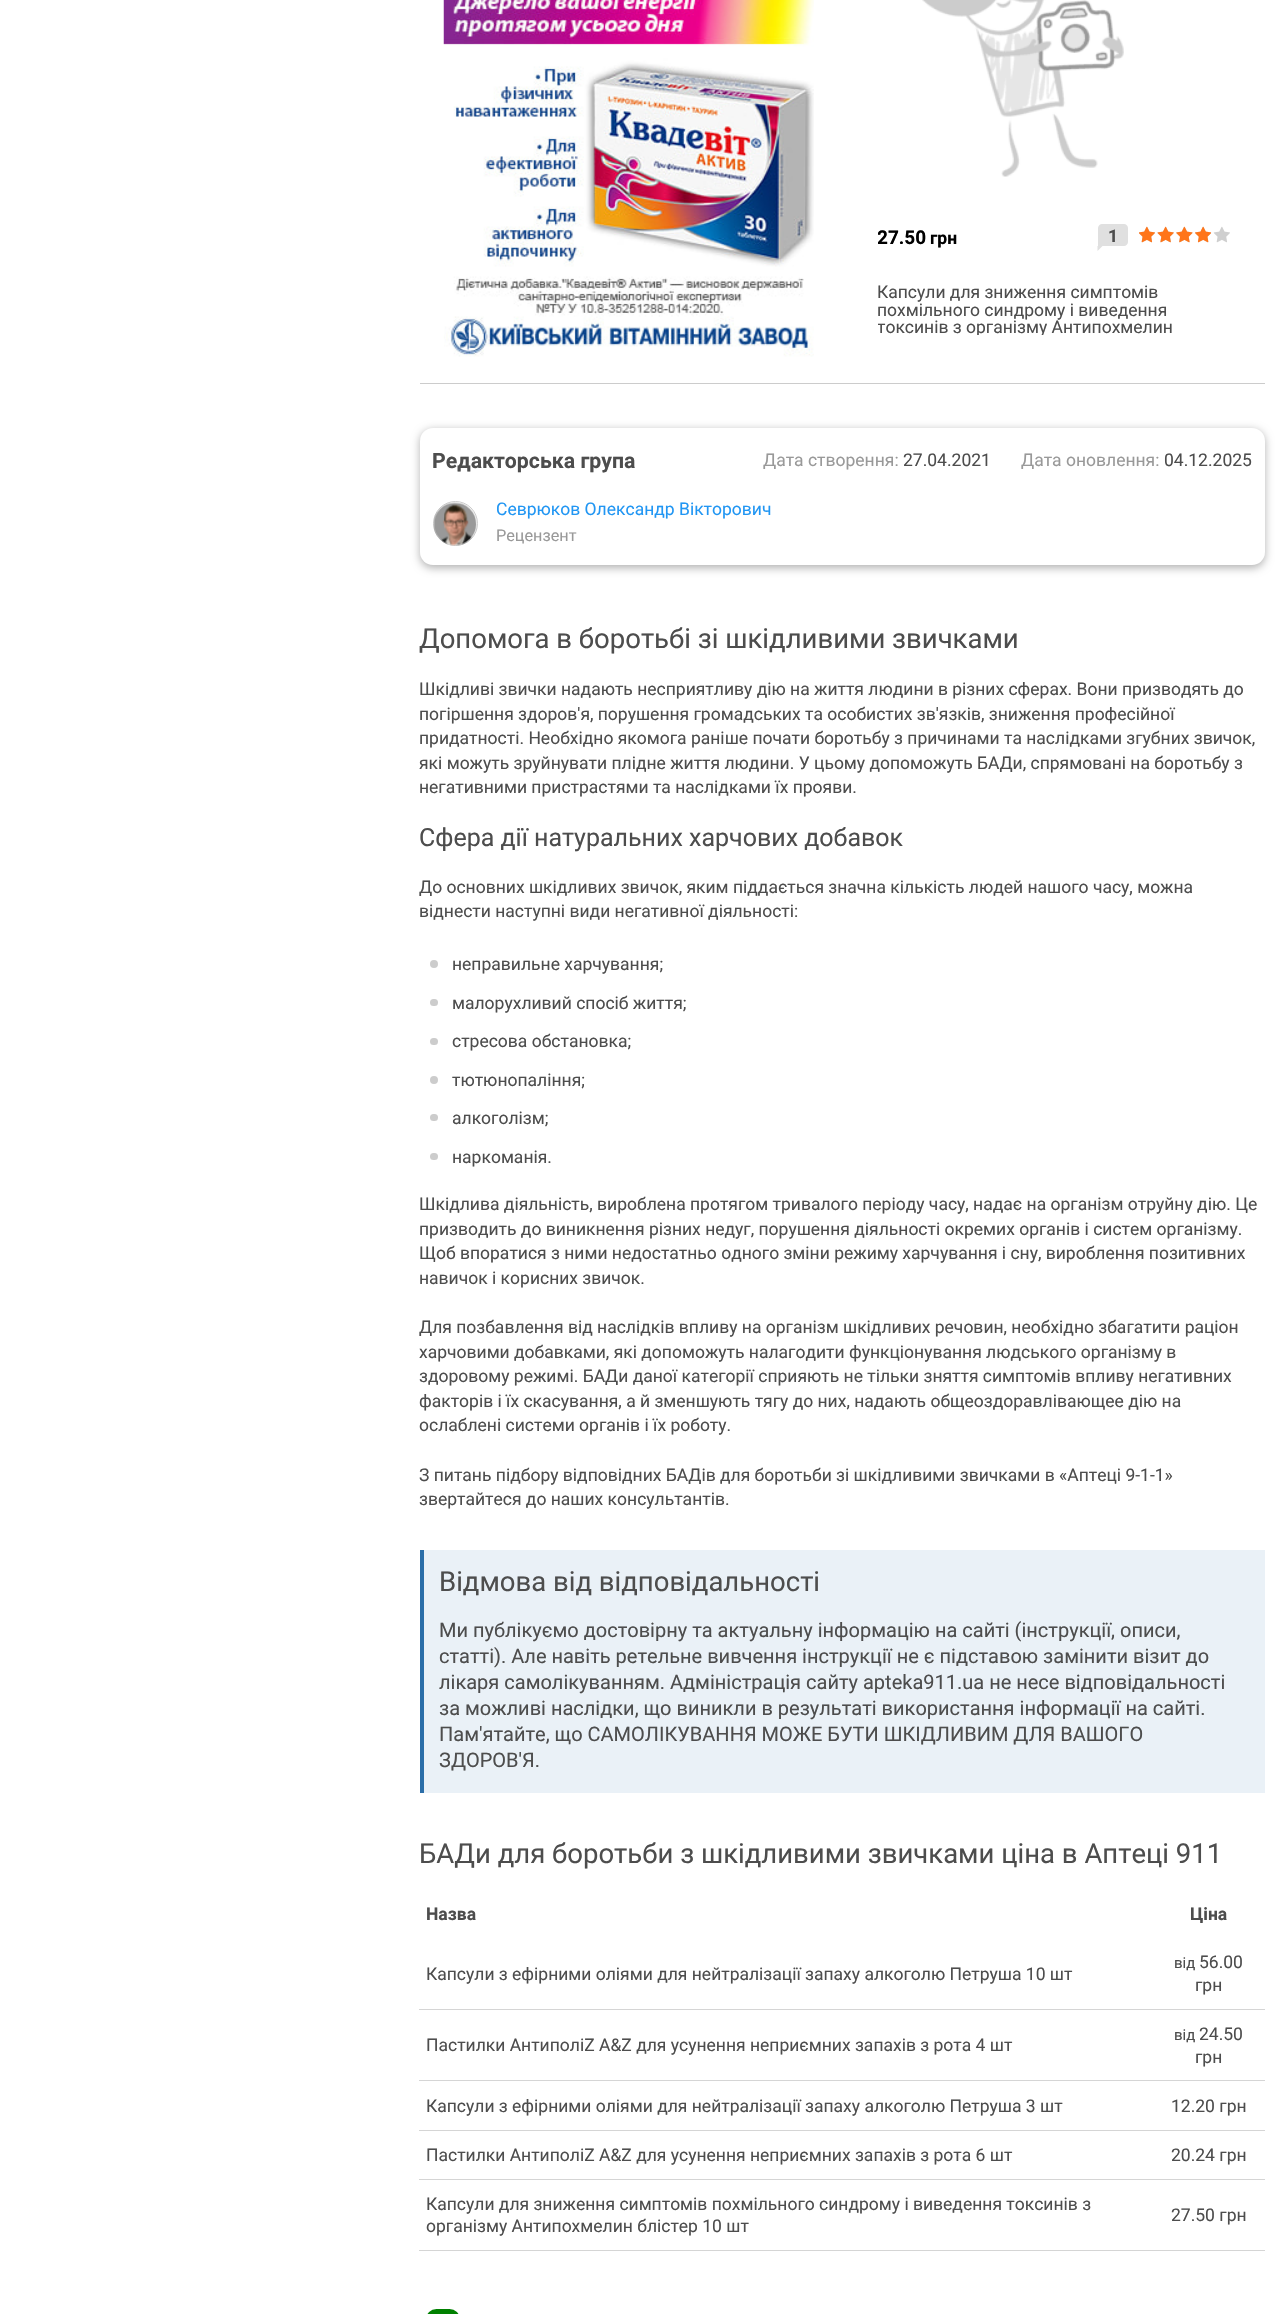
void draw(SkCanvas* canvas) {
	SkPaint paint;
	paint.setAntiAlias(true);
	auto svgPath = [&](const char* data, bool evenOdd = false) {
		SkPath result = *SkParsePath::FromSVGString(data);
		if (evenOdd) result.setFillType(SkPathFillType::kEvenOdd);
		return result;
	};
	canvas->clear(0xffffffff);
	canvas->drawImageRect(SkImages::DeferredFromEncodedData(SkData::MakeFromFileName("img1.png")), SkRect::MakeXYWH(443, 0, 371, 357), SkSamplingOptions());
	canvas->drawImageRect(SkImages::DeferredFromEncodedData(SkData::MakeFromFileName("img2.png")), SkRect::MakeXYWH(922, 0, 202, 177), SkSamplingOptions());
	canvas->save();
	canvas->clipRect(SkRect::MakeXYWH(878, 208, 80, 67));
	SkFont f1(fontMgr->matchFamilyStyle("Roboto", SkFontStyle::Bold()), 19);
	f1.setSubpixel(true);
	paint.setColor(0xff000000);
	canvas->drawString("27.50", 877, 244, f1, paint);
	canvas->restore();
	SkFont f2(fontMgr->matchFamilyStyle("Roboto", SkFontStyle::Bold()), 17.5);
	f2.setSubpixel(true);
	canvas->drawString("грн", 930, 244, f2, paint);
	paint.setColor(0xffe0e0e0);
	canvas->drawPath(svgPath("M1102 224H1124C1126 224 1128 226 1128 228V242C1128 244 1126 246 1124 246H1098V228C1098 226 1100 224 1102 224Z"), paint);
	paint.setColor(0xff4d4d4d);
	canvas->drawString("1", 1108, 242, f2, paint);
	paint.setColor(0xffe0e0e0);
	canvas->drawPath(svgPath("M1097.5 246H1102.5L1097.5 251Z"), paint);
	canvas->drawImageRect(SkImages::DeferredFromEncodedData(SkData::MakeFromFileName("img3.png")), SkRect::MakeXYWH(1139, 226, 91, 17), SkSamplingOptions());
	canvas->drawImageRect(SkImages::DeferredFromEncodedData(SkData::MakeFromFileName("img4.png")), SkRect::MakeXYWH(1139, 226, 72, 17), SkSamplingOptions());
	SkFont f3(fontMgr->matchFamilyStyle("Roboto", SkFontStyle::Normal()), 17.5);
	f3.setSubpixel(true);
	paint.setColor(0xff4d4d4d);
	canvas->drawString("Капсули для зниження симптомів", 877, 298, f3, paint);
	canvas->drawString("похмільного синдрому і виведення", 877, 316, f3, paint);
	canvas->save();
	canvas->clipRect(SkRect::MakeXYWH(878, 283, 352, 52));
	canvas->drawString("токсинів з організму Антипохмелин", 877, 333, f3, paint);
	canvas->restore();
	paint.setColor(0xffcccccc);
	canvas->drawRect(SkRect::MakeXYWH(420, 383, 845, 1), paint);
	paint.setColor(0x4d000000);
	paint.setMaskFilter(SkMaskFilter::MakeBlur(kNormal_SkBlurStyle, 4));
	canvas->drawRoundRect(SkRect::MakeXYWH(420, 430, 845, 138), 13, 13, paint);
	paint.setMaskFilter(nullptr);
	paint.setColor(0xffffffff);
	canvas->drawRoundRect(SkRect::MakeXYWH(420, 428, 845, 137), 13, 13, paint);
	SkFont f4(fontMgr->matchFamilyStyle("Roboto", SkFontStyle::Bold()), 21.25);
	f4.setSubpixel(true);
	paint.setColor(0xff4d4d4d);
	canvas->drawString("Редакторська група", 432, 468, f4, paint);
	paint.setColor(0xff999999);
	canvas->drawString("Дата створення:", 763, 466, f3, paint);
	paint.setColor(0xff4d4d4d);
	canvas->drawString("27.04.2021", 903, 466, f3, paint);
	paint.setColor(0xff999999);
	canvas->drawString("Дата оновлення:", 1021, 466, f3, paint);
	paint.setColor(0xff4d4d4d);
	canvas->drawString("04.12.2025", 1164, 466, f3, paint);
	paint.setStroke(true);
	paint.setStrokeWidth(1);
	paint.setColor(0xffcccccc);
	canvas->drawCircle(455.5, 523.5, 22, paint);
	canvas->drawImageRect(SkImages::DeferredFromEncodedData(SkData::MakeFromFileName("img5.png")), SkRect::MakeXYWH(433, 502, 44, 44), SkSamplingOptions());
	paint.setStroke(false);
	paint.setColor(0xff2196f3);
	canvas->drawString("Севрюков Олександр Вікторович", 496, 515, f3, paint);
	SkFont f5(fontMgr->matchFamilyStyle("Roboto", SkFontStyle::Normal()), 16.25);
	f5.setSubpixel(true);
	paint.setColor(0xff999999);
	canvas->drawString("Рецензент", 496, 541, f5, paint);
	SkFont f6(fontMgr->matchFamilyStyle("Roboto", SkFontStyle::Normal()), 27.5);
	f6.setSubpixel(true);
	paint.setColor(0xff4d4d4d);
	canvas->drawString("Допомога в боротьбі зі шкідливими звичками", 419, 648, f6, paint);
	canvas->drawString("Шкідливі звички надають несприятливу дію на життя людини в різних сферах. Вони призводять до", 419, 695, f3, paint);
	canvas->drawString("погіршення здоров'я, порушення громадських та особистих зв'язків, зниження професійної", 419, 720, f3, paint);
	canvas->drawString("придатності. Необхідно якомога раніше почати боротьбу з причинами та наслідками згубних звичок,", 419, 744, f3, paint);
	canvas->drawString("які можуть зруйнувати плідне життя людини. У цьому допоможуть БАДи, спрямовані на боротьбу з", 419, 769, f3, paint);
	canvas->drawString("негативними пристрастями та наслідками їх прояви.", 419, 793, f3, paint);
	SkFont f7(fontMgr->matchFamilyStyle("Roboto", SkFontStyle::Normal()), 25);
	f7.setSubpixel(true);
	canvas->drawString("Сфера дії натуральних харчових добавок", 419, 846, f7, paint);
	canvas->drawString("До основних шкідливих звичок, яким піддається значна кількість людей нашого часу, можна", 419, 893, f3, paint);
	canvas->drawString("віднести наступні види негативної діяльності:", 419, 917, f3, paint);
	paint.setColor(0xffcccccc);
	canvas->drawCircle(434, 964, 4, paint);
	paint.setColor(0xff4d4d4d);
	canvas->drawString("неправильне харчування;", 452, 970, f3, paint);
	paint.setColor(0xffcccccc);
	canvas->drawRoundRect(SkRect::MakeXYWH(430, 999, 8, 7), 3.5, 3.5, paint);
	paint.setColor(0xff4d4d4d);
	canvas->drawString("малорухливий спосіб життя;", 452, 1009, f3, paint);
	paint.setColor(0xffcccccc);
	canvas->drawRoundRect(SkRect::MakeXYWH(430, 1038, 8, 7), 3.5, 3.5, paint);
	paint.setColor(0xff4d4d4d);
	canvas->drawString("стресова обстановка;", 452, 1047, f3, paint);
	paint.setColor(0xffcccccc);
	canvas->drawCircle(434, 1080, 4, paint);
	paint.setColor(0xff4d4d4d);
	canvas->drawString("тютюнопаління;", 452, 1086, f3, paint);
	paint.setColor(0xffcccccc);
	canvas->drawRoundRect(SkRect::MakeXYWH(430, 1114, 8, 7), 3.5, 3.5, paint);
	paint.setColor(0xff4d4d4d);
	canvas->drawString("алкоголізм;", 452, 1124, f3, paint);
	paint.setColor(0xffcccccc);
	canvas->drawRoundRect(SkRect::MakeXYWH(430, 1153, 8, 7), 3.5, 3.5, paint);
	paint.setColor(0xff4d4d4d);
	canvas->drawString("наркоманія.", 452, 1163, f3, paint);
	canvas->drawString("Шкідлива діяльність, вироблена протягом тривалого періоду часу, надає на організм отруйну дію. Це", 419, 1210, f3, paint);
	canvas->drawString("призводить до виникнення різних недуг, порушення діяльності окремих органів і систем організму.", 419, 1235, f3, paint);
	canvas->drawString("Щоб впоратися з ними недостатньо одного зміни режиму харчування і сну, вироблення позитивних", 419, 1259, f3, paint);
	canvas->drawString("навичок і корисних звичок.", 419, 1284, f3, paint);
	canvas->drawString("Для позбавлення від наслідків впливу на організм шкідливих речовин, необхідно збагатити раціон", 419, 1333, f3, paint);
	canvas->drawString("харчовими добавками, які допоможуть налагодити функціонування людського організму в", 419, 1358, f3, paint);
	canvas->drawString("здоровому режимі. БАДи даної категорії сприяють не тільки зняття симптомів впливу негативних", 419, 1382, f3, paint);
	canvas->drawString("факторів і їх скасування, а й зменшують тягу до них, надають общеоздоравлівающее дію на", 419, 1407, f3, paint);
	canvas->drawString("ослаблені системи органів і їх роботу.", 419, 1431, f3, paint);
	canvas->drawString("З питань підбору відповідних БАДів для боротьби зі шкідливими звичками в «Аптеці 9-1-1»", 419, 1481, f3, paint);
	canvas->drawString("звертайтеся до наших консультантів.", 419, 1505, f3, paint);
	paint.setColor(0xffeaf1f7);
	canvas->drawRect(SkRect::MakeXYWH(424, 1550, 841, 243), paint);
	paint.setColor(0xff2b6ea8);
	canvas->drawRect(SkRect::MakeXYWH(420, 1550, 4, 243), paint);
	paint.setColor(0xff4d4d4d);
	canvas->drawString("Відмова від відповідальності", 439, 1591, f6, paint);
	SkFont f8(fontMgr->matchFamilyStyle("Roboto", SkFontStyle::Normal()), 20);
	f8.setSubpixel(true);
	canvas->drawString("Ми публікуємо достовірну та актуальну інформацію на сайті (інструкції, описи,", 439, 1637, f8, paint);
	canvas->drawString("статті). Але навіть ретельне вивчення інструкції не є підставою замінити візит до", 439, 1663, f8, paint);
	canvas->drawString("лікаря самолікуванням. Адміністрація сайту apteka911.ua не несе відповідальності", 439, 1689, f8, paint);
	canvas->drawString("за можливі наслідки, що виникли в результаті використання інформації на сайті.", 439, 1715, f8, paint);
	canvas->drawString("Пам'ятайте, що САМОЛІКУВАННЯ МОЖЕ БУТИ ШКІДЛИВИМ ДЛЯ ВАШОГО", 439, 1741, f8, paint);
	canvas->drawString("ЗДОРОВ'Я.", 439, 1767, f8, paint);
	canvas->drawString("БАДи для боротьби з шкідливими звичками ціна в Аптеці 911", 419, 1863, f6, paint);
	canvas->drawString("Назва", 426, 1920, f2, paint);
	canvas->drawString("Ціна", 1190, 1920, f2, paint);
	paint.setColor(0xffd5d5d5);
	canvas->drawRect(SkRect::MakeXYWH(419, 2009, 846, 1), paint);
	paint.setColor(0xff4d4d4d);
	canvas->drawString("Капсули з ефірними оліями для нейтралізації запаху алкоголю Петруша 10 шт", 426, 1980, f3, paint);
	SkFont f9(fontMgr->matchFamilyStyle("Roboto", SkFontStyle::Normal()), 15);
	f9.setSubpixel(true);
	canvas->drawString("від", 1174, 1968, f9, paint);
	canvas->drawString("56.00", 1199, 1968, f3, paint);
	canvas->drawString("грн", 1195, 1991, f3, paint);
	paint.setColor(0xffd5d5d5);
	canvas->drawRect(SkRect::MakeXYWH(419, 2080, 846, 1), paint);
	paint.setColor(0xff4d4d4d);
	canvas->drawString("Пастилки АнтиполіZ A&Z для усунення неприємних запахів з рота 4 шт", 426, 2051, f3, paint);
	canvas->drawString("від", 1174, 2040, f9, paint);
	canvas->drawString("24.50", 1199, 2040, f3, paint);
	canvas->drawString("грн", 1195, 2063, f3, paint);
	paint.setColor(0xffd5d5d5);
	canvas->drawRect(SkRect::MakeXYWH(419, 2130, 846, 1), paint);
	paint.setColor(0xff4d4d4d);
	canvas->drawString("Капсули з ефірними оліями для нейтралізації запаху алкоголю Петруша 3 шт", 426, 2112, f3, paint);
	canvas->drawString("12.20 грн", 1171, 2112, f3, paint);
	paint.setColor(0xffd5d5d5);
	canvas->drawRect(SkRect::MakeXYWH(419, 2179, 846, 1), paint);
	paint.setColor(0xff4d4d4d);
	canvas->drawString("Пастилки АнтиполіZ A&Z для усунення неприємних запахів з рота 6 шт", 426, 2161, f3, paint);
	canvas->drawString("20.24 грн", 1171, 2161, f3, paint);
	paint.setColor(0xffd5d5d5);
	canvas->drawRect(SkRect::MakeXYWH(419, 2250, 846, 1), paint);
	paint.setColor(0xff4d4d4d);
	canvas->drawString("Капсули для зниження симптомів похмільного синдрому і виведення токсинів з", 426, 2210, f3, paint);
	canvas->drawString("організму Антипохмелин блістер 10 шт", 426, 2232, f3, paint);
	canvas->drawString("27.50 грн", 1171, 2221, f3, paint);
	paint.setColor(0xff008000);
	canvas->drawRoundRect(SkRect::MakeXYWH(426, 2309, 34, 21), 16, 16, paint);
}
